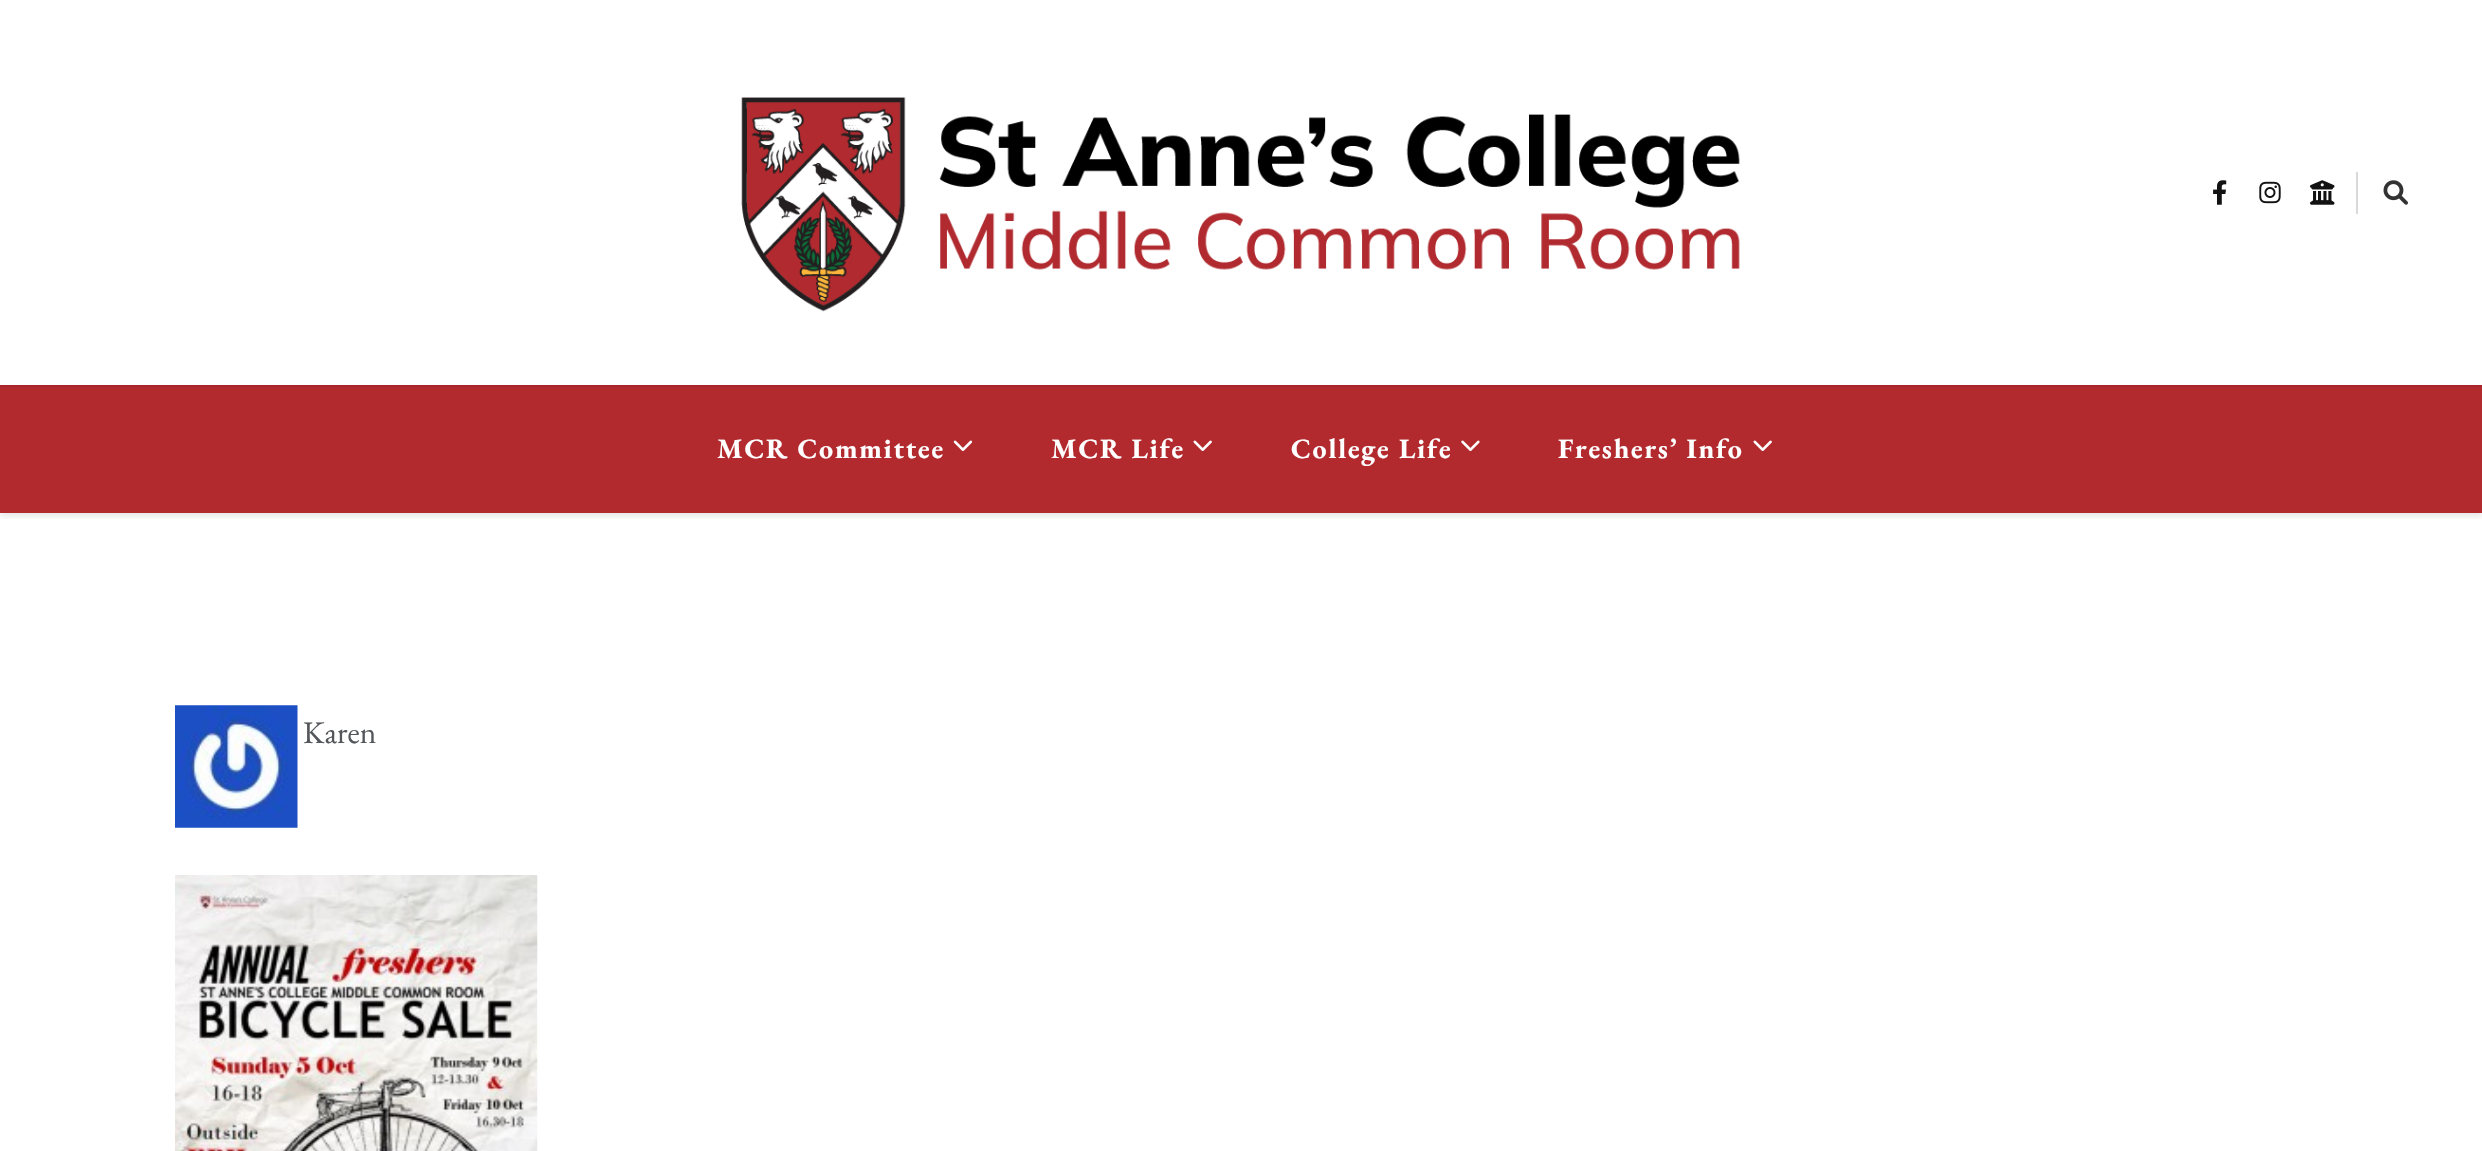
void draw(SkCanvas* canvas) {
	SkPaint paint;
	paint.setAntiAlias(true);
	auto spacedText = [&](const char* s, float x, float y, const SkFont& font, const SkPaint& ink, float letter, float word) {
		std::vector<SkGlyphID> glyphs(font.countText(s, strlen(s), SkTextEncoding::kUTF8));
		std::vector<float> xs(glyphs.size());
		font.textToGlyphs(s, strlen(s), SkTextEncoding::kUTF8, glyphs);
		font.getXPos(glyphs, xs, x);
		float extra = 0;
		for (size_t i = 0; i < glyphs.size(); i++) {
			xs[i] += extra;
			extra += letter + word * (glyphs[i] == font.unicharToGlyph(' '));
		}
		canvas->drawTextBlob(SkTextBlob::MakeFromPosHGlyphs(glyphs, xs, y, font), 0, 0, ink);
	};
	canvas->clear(0xffffffff);
	canvas->save();
	canvas->clipRect(SkRect::MakeXYWH(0, 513, 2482, 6));
	paint.setColor(0x1a000000);
	paint.setMaskFilter(SkMaskFilter::MakeBlur(kNormal_SkBlurStyle, 3.5));
	canvas->drawRect(SkRect::MakeXYWH(0, 4, 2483, 512), paint);
	paint.setMaskFilter(nullptr);
	canvas->restore();
	canvas->drawImageRect(SkImages::DeferredFromEncodedData(SkData::MakeFromFileName("img1.png")), SkRect::MakeXYWH(741, 97, 999, 215), SkSamplingOptions());
	canvas->drawImageRect(SkImages::DeferredFromEncodedData(SkData::MakeFromFileName("img2.png")), SkRect::MakeXYWH(2213, 180, 14, 25), SkSamplingOptions());
	canvas->drawImageRect(SkImages::DeferredFromEncodedData(SkData::MakeFromFileName("img3.png")), SkRect::MakeXYWH(2259, 181, 22, 23), SkSamplingOptions());
	canvas->drawImageRect(SkImages::DeferredFromEncodedData(SkData::MakeFromFileName("img4.png")), SkRect::MakeXYWH(2310, 180, 25, 25), SkSamplingOptions());
	paint.setColor(0xffd9d9d9);
	canvas->drawRect(SkRect::MakeXYWH(2356, 172, 2, 42), paint);
	canvas->drawImageRect(SkImages::DeferredFromEncodedData(SkData::MakeFromFileName("img5.png")), SkRect::MakeXYWH(2383, 180, 25, 25), SkSamplingOptions());
	paint.setColor(0xffb2292e);
	canvas->drawRect(SkRect::MakeXYWH(0, 387, 2482, 126), paint);
	paint.setColor(0xffa6262b);
	canvas->drawRect(SkRect::MakeXYWH(0, 385, 2482, 2), paint);
	SkFont f1(fontMgr->matchFamilyStyle("EB Garamond", SkFontStyle::Bold()), 28);
	f1.setSubpixel(true);
	paint.setColor(0xffffffff);
	spacedText("MCR Committee", 717, 458, f1, paint, 1.75, 0);
	canvas->drawImageRect(SkImages::DeferredFromEncodedData(SkData::MakeFromFileName("img6.png")), SkRect::MakeXYWH(953, 440, 20, 11), SkSamplingOptions());
	spacedText("MCR Life", 1051, 458, f1, paint, 1.75, 0);
	canvas->drawImageRect(SkImages::DeferredFromEncodedData(SkData::MakeFromFileName("img7.png")), SkRect::MakeXYWH(1193, 440, 19, 11), SkSamplingOptions());
	spacedText("College Life", 1291, 458, f1, paint, 1.75, 0);
	canvas->drawImageRect(SkImages::DeferredFromEncodedData(SkData::MakeFromFileName("img8.png")), SkRect::MakeXYWH(1461, 440, 19, 11), SkSamplingOptions());
	spacedText("Freshers’ Info", 1558, 458, f1, paint, 1.75, 0);
	canvas->drawImageRect(SkImages::DeferredFromEncodedData(SkData::MakeFromFileName("img7.png")), SkRect::MakeXYWH(1753, 440, 19, 11), SkSamplingOptions());
	canvas->drawImageRect(SkImages::DeferredFromEncodedData(SkData::MakeFromFileName("img9.png")), SkRect::MakeXYWH(175, 705, 123, 123), SkSamplingOptions());
	SkFont f2(fontMgr->matchFamilyStyle("EB Garamond", SkFontStyle::Normal()), 31.5);
	f2.setSubpixel(true);
	paint.setColor(0xff53565a);
	canvas->drawString("Karen", 303, 743, f2, paint);
	canvas->drawImageRect(SkImages::DeferredFromEncodedData(SkData::MakeFromFileName("img10.png")), SkRect::MakeXYWH(175, 875, 363, 276), SkSamplingOptions());
}
